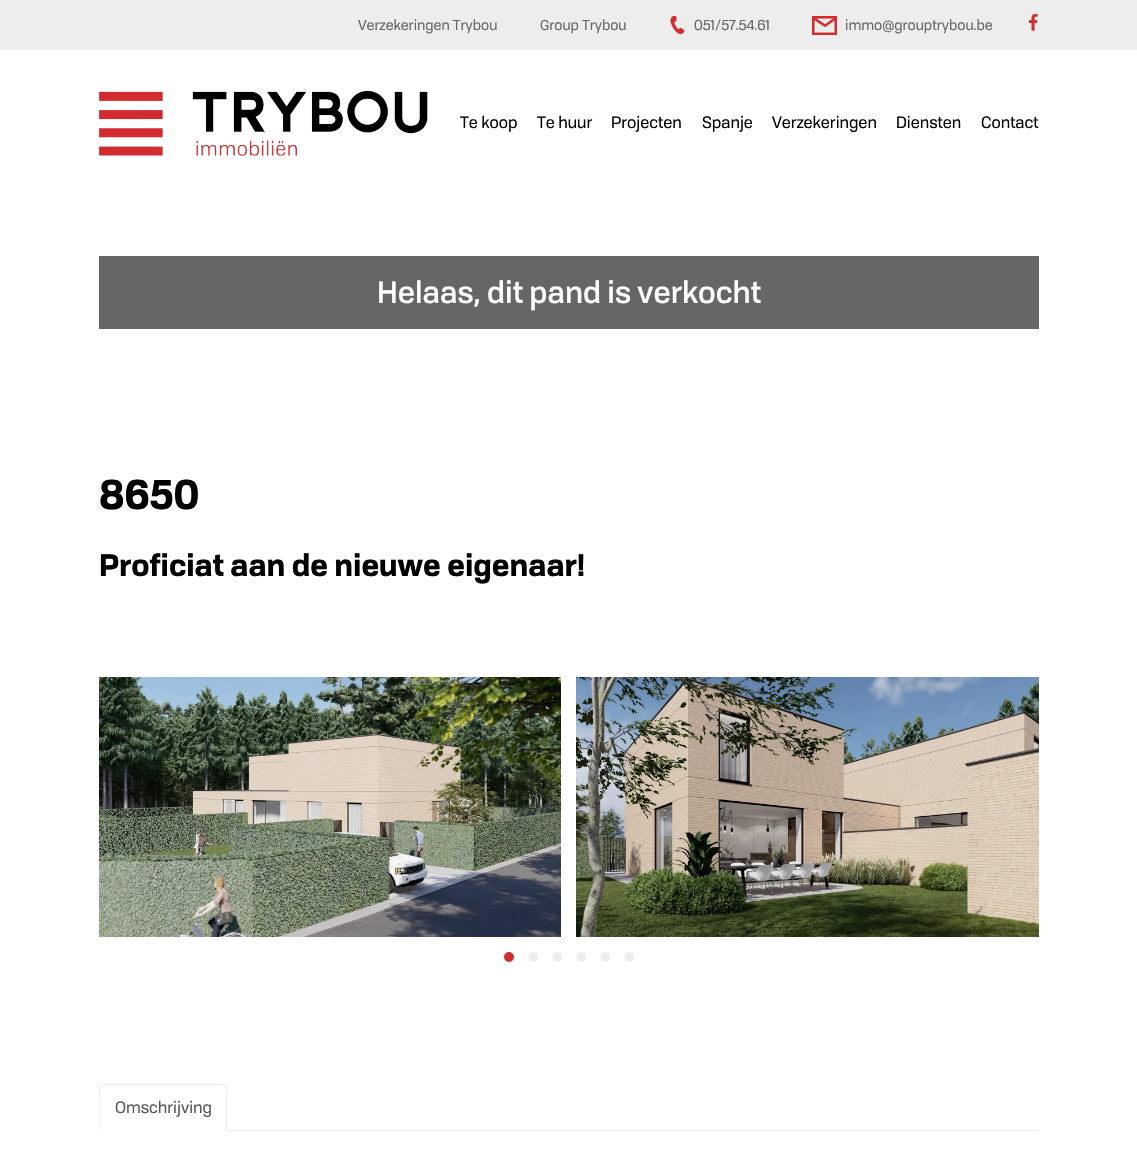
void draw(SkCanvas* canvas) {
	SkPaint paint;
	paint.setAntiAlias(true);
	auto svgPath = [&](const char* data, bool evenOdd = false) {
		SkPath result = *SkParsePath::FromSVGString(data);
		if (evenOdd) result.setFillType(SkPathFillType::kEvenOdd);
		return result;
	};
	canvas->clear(0xffffffff);
	paint.setColor(0xffededed);
	canvas->drawRect(SkRect::MakeXYWH(0, 0, 1137, 50), paint);
	SkFont f1(fontMgr->matchFamilyStyle("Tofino", SkFontStyle::Normal()), 14);
	f1.setSubpixel(true);
	paint.setColor(0xff666666);
	canvas->drawString("Verzekeringen Trybou", 358, 30, f1, paint);
	canvas->drawString("Group Trybou", 540, 30, f1, paint);
	canvas->drawImageRect(SkImages::DeferredFromEncodedData(SkData::MakeFromFileName("img1.png")), SkRect::MakeXYWH(670, 16, 15, 18), SkSamplingOptions());
	canvas->drawString("051/57.54.61", 694, 30, f1, paint);
	canvas->drawImageRect(SkImages::DeferredFromEncodedData(SkData::MakeFromFileName("img2.png")), SkRect::MakeXYWH(812, 16, 25, 19), SkSamplingOptions());
	canvas->drawString("immo@grouptrybou.be", 845, 30, f1, paint);
	canvas->drawImageRect(SkImages::DeferredFromEncodedData(SkData::MakeFromFileName("img3.png")), SkRect::MakeXYWH(1028, 13, 10, 18), SkSamplingOptions());
	canvas->drawImageRect(SkImages::DeferredFromEncodedData(SkData::MakeFromFileName("img4.png")), SkRect::MakeXYWH(99, 91, 329, 65), SkSamplingOptions());
	SkFont f2(fontMgr->matchFamilyStyle("Tofino", SkFontStyle::Normal()), 16);
	f2.setSubpixel(true);
	paint.setColor(0xff000000);
	canvas->drawString("Te koop", 460, 128, f2, paint);
	canvas->drawString("Te huur", 537, 128, f2, paint);
	canvas->drawString("Projecten", 611, 128, f2, paint);
	canvas->drawString("Spanje", 702, 128, f2, paint);
	canvas->drawString("Verzekeringen", 772, 128, f2, paint);
	canvas->drawString("Diensten", 896, 128, f2, paint);
	canvas->drawString("Contact", 981, 128, f2, paint);
	paint.setColor(0xff666666);
	canvas->drawRect(SkRect::MakeXYWH(99, 256, 940, 73), paint);
	SkFont f3(fontMgr->matchFamilyStyle("Tofino", SkFontStyle(500, SkFontStyle::kNormal_Width, SkFontStyle::kUpright_Slant)), 30);
	f3.setSubpixel(true);
	paint.setColor(0xffffffff);
	canvas->drawString("Helaas, dit pand is verkocht", 377, 303, f3, paint);
	SkFont f4(fontMgr->matchFamilyStyle("Tofino", SkFontStyle::Bold()), 40);
	f4.setSubpixel(true);
	paint.setColor(0xff000000);
	canvas->drawString("8650", 99, 509, f4, paint);
	SkFont f5(fontMgr->matchFamilyStyle("Tofino", SkFontStyle::Bold()), 30);
	f5.setSubpixel(true);
	canvas->drawString("Proficiat aan de nieuwe eigenaar!", 99, 576, f5, paint);
	canvas->drawImageRect(SkImages::DeferredFromEncodedData(SkData::MakeFromFileName("img5.png")), SkRect::MakeXYWH(99, 677, 462, 260), SkSamplingOptions());
	canvas->drawImageRect(SkImages::DeferredFromEncodedData(SkData::MakeFromFileName("img6.png")), SkRect::MakeXYWH(576, 677, 463, 260), SkSamplingOptions());
	paint.setColor(0xffd22d2e);
	canvas->drawCircle(509, 957, 5, paint);
	paint.setColor(0xffededed);
	canvas->drawCircle(533, 957, 5, paint);
	canvas->drawCircle(557, 957, 5, paint);
	canvas->drawCircle(581, 957, 5, paint);
	canvas->drawCircle(605, 957, 5, paint);
	canvas->drawCircle(629, 957, 5, paint);
	canvas->drawRect(SkRect::MakeXYWH(227, 1130, 812, 1), paint);
	canvas->drawPath(svgPath("M103 1084L100 1085L101 1086L103 1085H223L225 1086L226 1085L223 1084Z"), paint);
	canvas->drawPath(svgPath("M227 1131V1088C227 1087 226 1086 226 1085L225 1086C227 1088 226 1125 226 1130Z"), paint);
	paint.setColor(0xffffffff);
	canvas->drawPath(svgPath("M227 1131L226 1130H100L99 1131Z"), paint);
	paint.setColor(0xffededed);
	canvas->drawPath(svgPath("M99 1131L100 1130C100 1125 99 1088 101 1086L100 1085L99 1088Z"), paint);
	paint.setColor(0xff555555);
	canvas->drawString("Omschrijving", 115, 1113, f2, paint);
}
